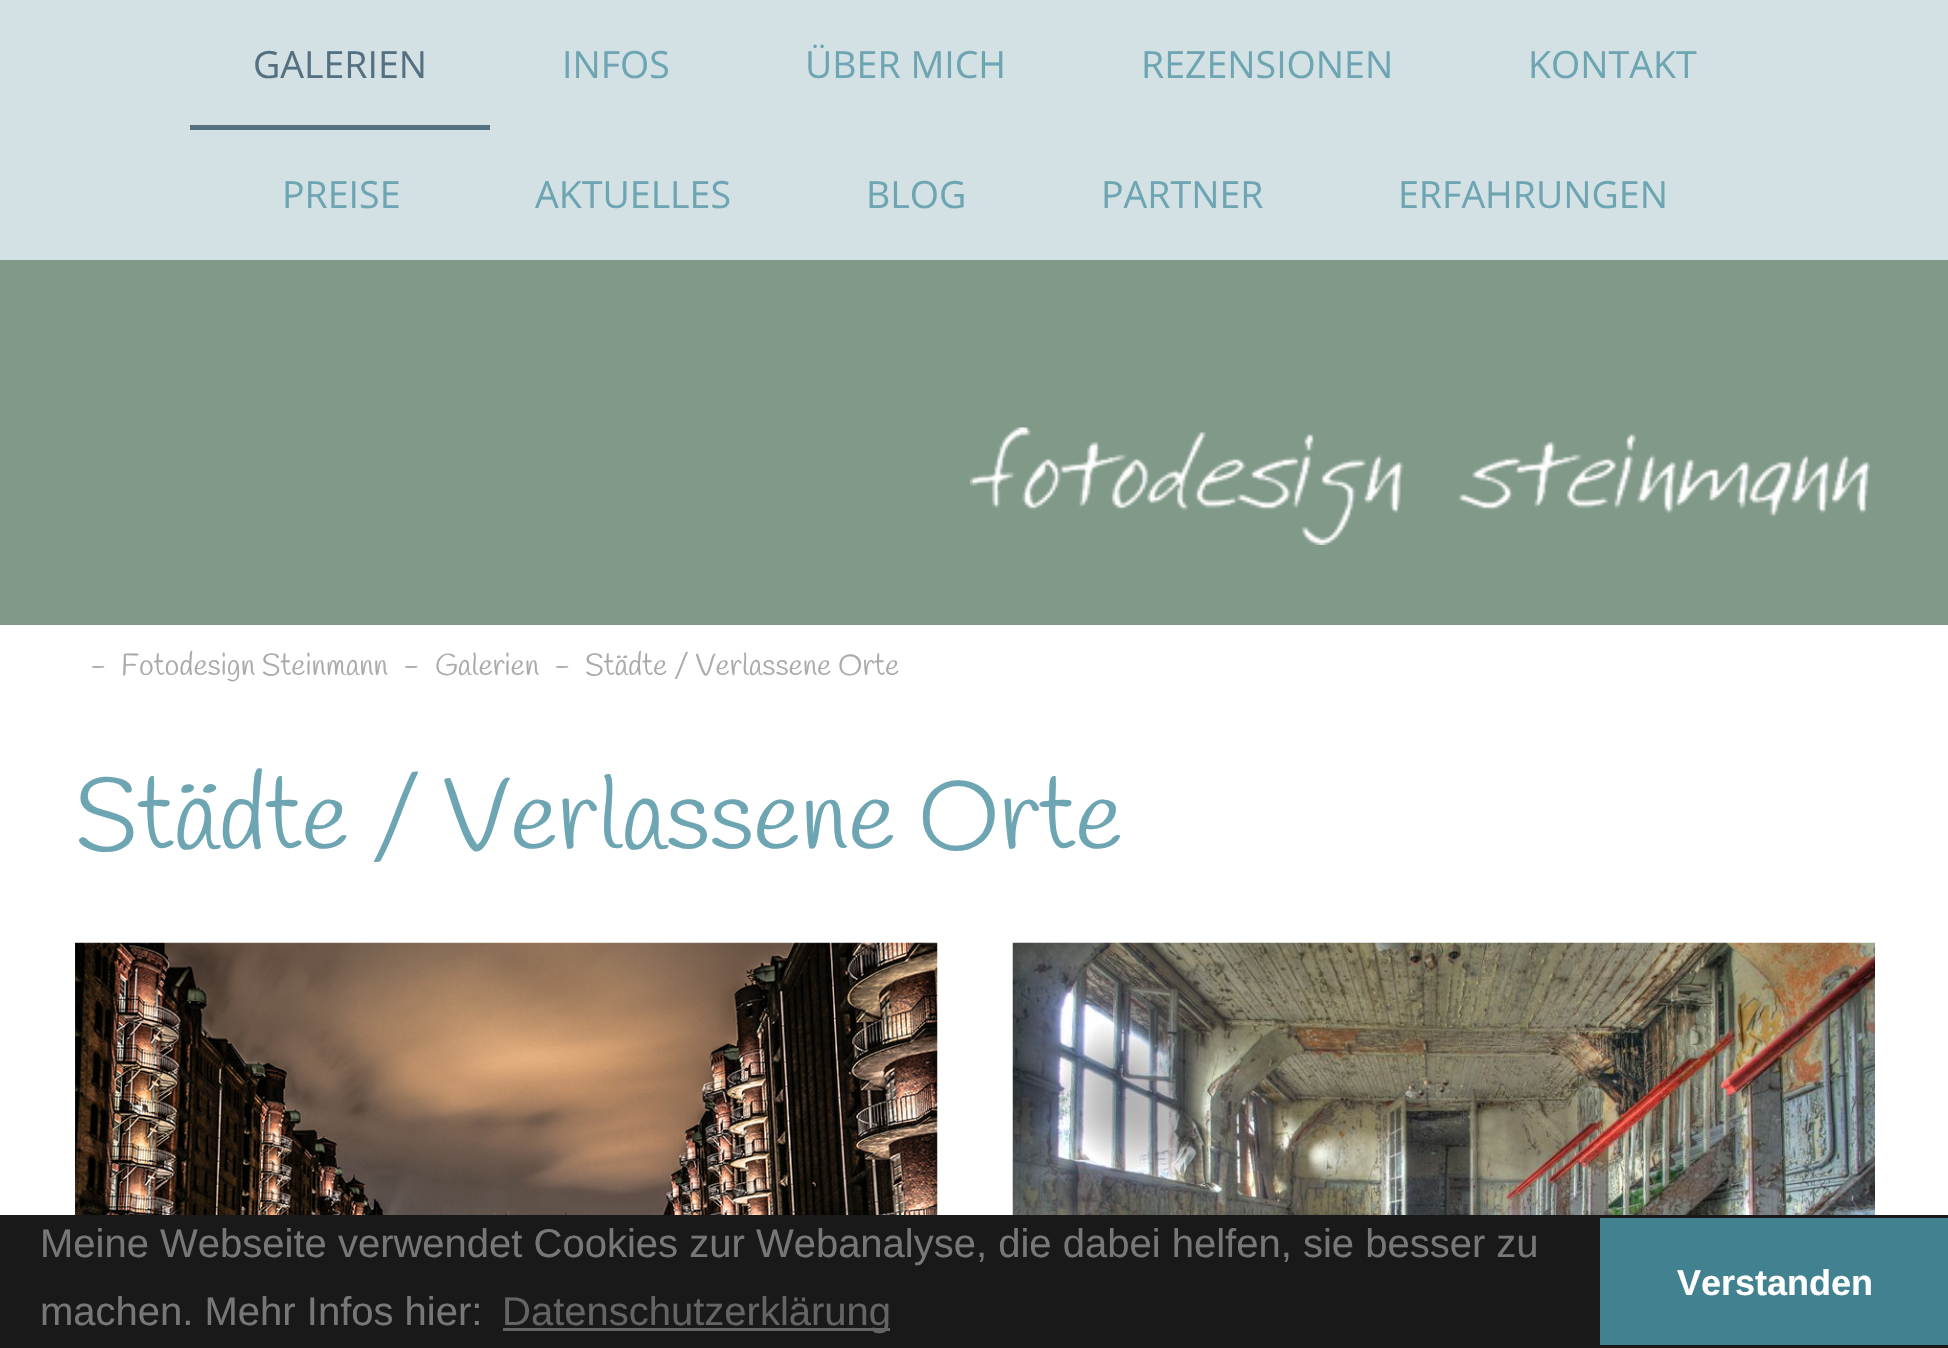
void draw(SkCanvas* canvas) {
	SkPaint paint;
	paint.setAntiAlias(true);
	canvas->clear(0xffffffff);
	paint.setColor(0xffd3e1e4);
	canvas->drawRect(SkRect::MakeXYWH(0, 0, 1948, 260), paint);
	paint.setColor(0xff557080);
	canvas->drawRect(SkRect::MakeXYWH(190, 125, 300, 5), paint);
	SkFont f1(fontMgr->matchFamilyStyle("Open Sans", SkFontStyle::Normal()), 37.5);
	f1.setSubpixel(true);
	canvas->drawString("GALERIEN", 253, 78, f1, paint);
	paint.setColor(0xff6da5b2);
	canvas->drawString("INFOS", 562, 78, f1, paint);
	canvas->drawString("ÜBER MICH", 805, 78, f1, paint);
	canvas->drawString("REZENSIONEN", 1141, 78, f1, paint);
	canvas->drawString("KONTAKT", 1528, 78, f1, paint);
	canvas->drawString("PREISE", 282, 208, f1, paint);
	canvas->drawString("AKTUELLES", 535, 208, f1, paint);
	canvas->drawString("BLOG", 866, 208, f1, paint);
	canvas->drawString("PARTNER", 1101, 208, f1, paint);
	canvas->drawString("ERFAHRUNGEN", 1398, 208, f1, paint);
	paint.setColor(0xff819989);
	canvas->drawRect(SkRect::MakeXYWH(0, 260, 1948, 365), paint);
	canvas->drawImageRect(SkImages::DeferredFromEncodedData(SkData::MakeFromFileName("img1.png")), SkRect::MakeXYWH(970, 427, 900, 118), SkSamplingOptions());
	SkFont f2(fontMgr->matchFamilyStyle("Handlee", SkFontStyle::Normal()), 30);
	f2.setSubpixel(true);
	paint.setColor(0xffaaaaaa);
	canvas->drawString("-", 90, 675, f2, paint);
	canvas->drawString("Fotodesign Steinmann", 121, 675, f2, paint);
	canvas->drawString("-", 403, 675, f2, paint);
	canvas->drawString("Galerien", 435, 675, f2, paint);
	canvas->drawString("-", 554, 675, f2, paint);
	canvas->drawString("Städte / Verlassene Orte", 585, 675, f2, paint);
	SkFont f3(fontMgr->matchFamilyStyle("Handlee", SkFontStyle::Normal()), 100);
	f3.setSubpixel(true);
	paint.setColor(0xff6da5b2);
	canvas->drawString("Städte / Verlassene Orte", 75, 849, f3, paint);
	canvas->drawImageRect(SkImages::DeferredFromEncodedData(SkData::MakeFromFileName("img2.png")), SkRect::MakeXYWH(75, 942, 863, 273), SkSamplingOptions());
	canvas->drawImageRect(SkImages::DeferredFromEncodedData(SkData::MakeFromFileName("img3.png")), SkRect::MakeXYWH(1012, 942, 863, 273), SkSamplingOptions());
	paint.setColor(0xff191919);
	canvas->drawRect(SkRect::MakeXYWH(0, 1215, 1948, 133), paint);
	SkFont f4(fontMgr->matchFamilyStyle("Liberation Sans", SkFontStyle::Normal()), 40);
	f4.setSubpixel(true);
	paint.setColor(0xff777777);
	canvas->drawString("Meine Webseite verwendet Cookies zur Webanalyse, die dabei helfen, sie besser zu", 40, 1257, f4, paint);
	canvas->drawString("machen. Mehr Infos hier:", 40, 1325, f4, paint);
	paint.setColor(0xff646464);
	canvas->drawRect(SkRect::MakeXYWH(503, 1328, 387, 3), paint);
	canvas->drawString("Datenschutzerklärung", 502, 1325, f4, paint);
	paint.setColor(0xff42818f);
	canvas->drawRect(SkRect::MakeXYWH(1600, 1218, 348, 127), paint);
	SkFont f5(fontMgr->matchFamilyStyle("Liberation Sans", SkFontStyle::Bold()), 36);
	f5.setSubpixel(true);
	paint.setColor(0xffffffff);
	canvas->drawString("Verstanden", 1677, 1295, f5, paint);
}
